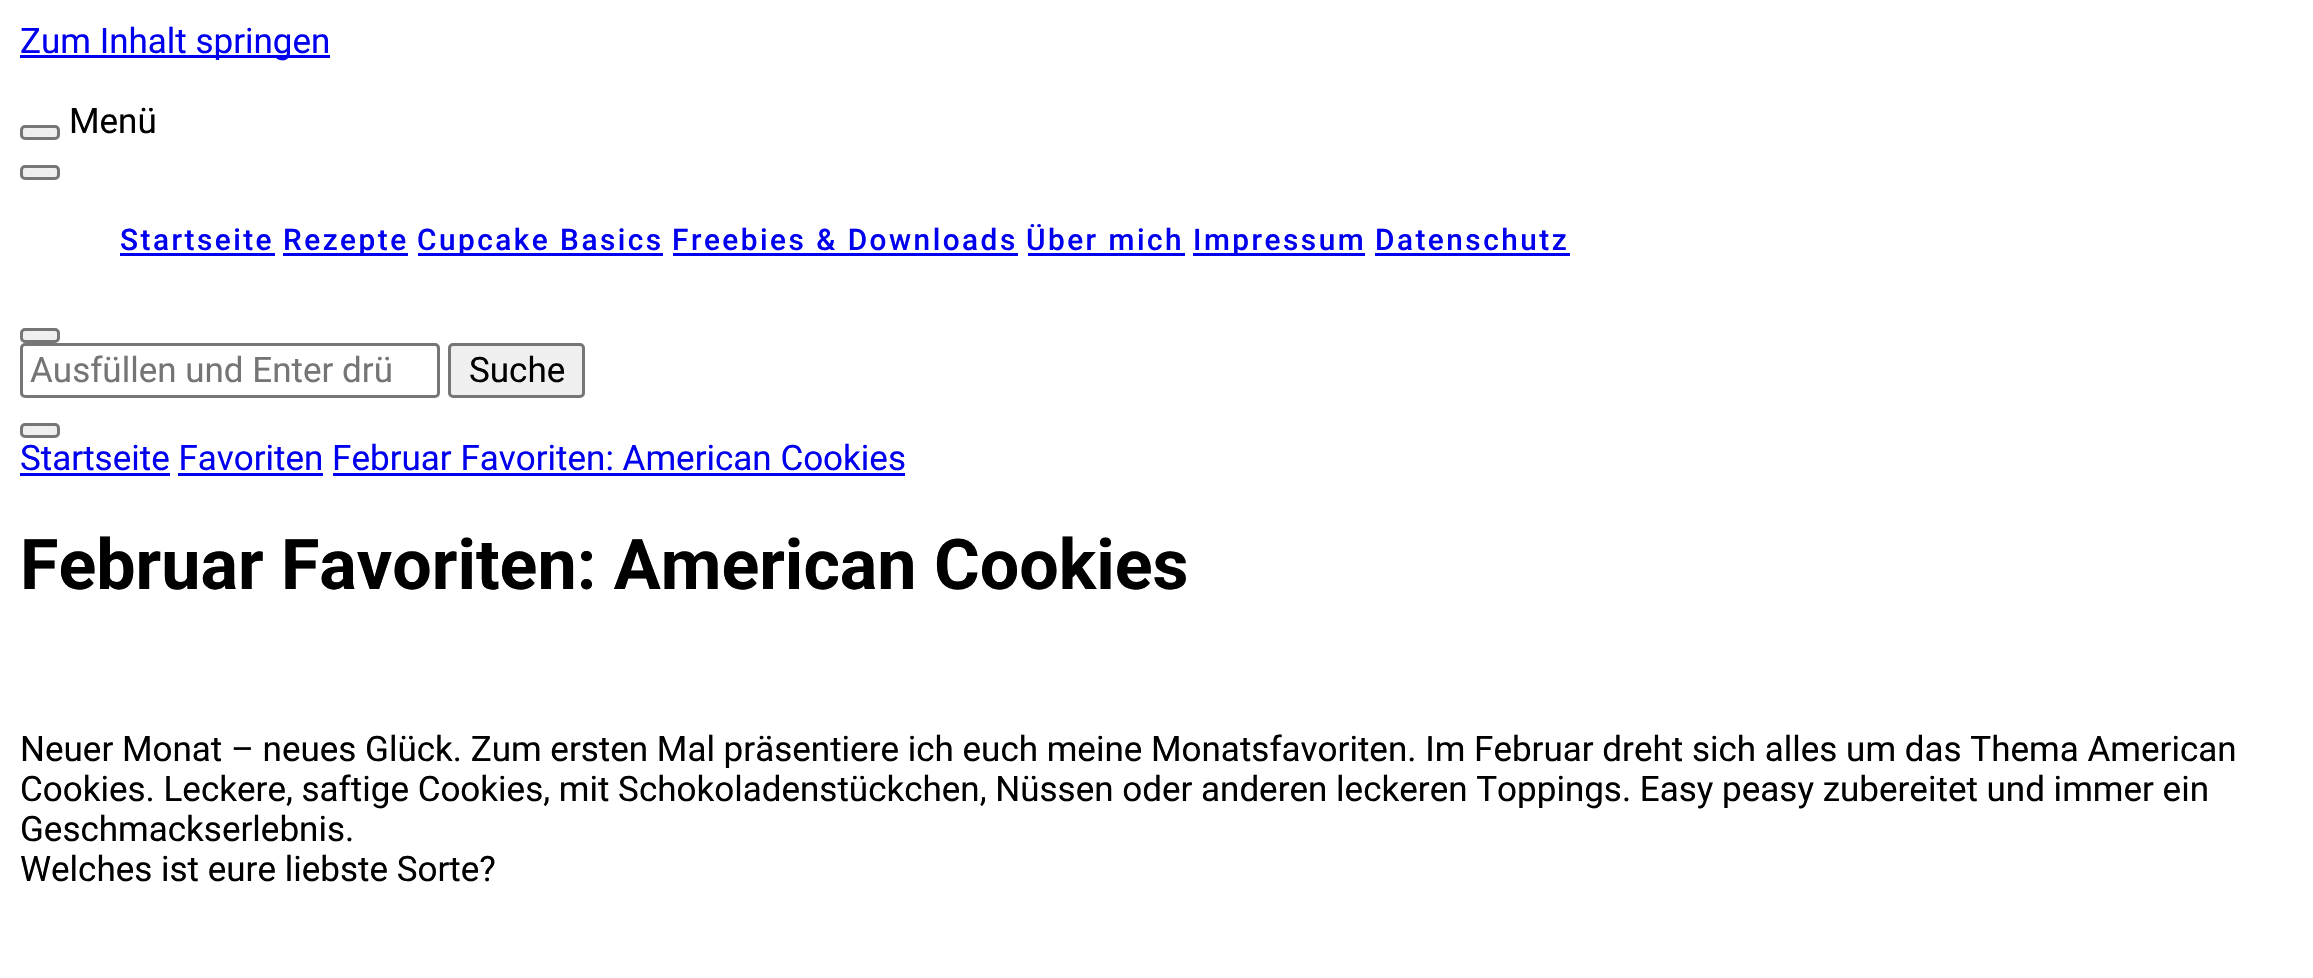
void draw(SkCanvas* canvas) {
	SkPaint paint;
	paint.setAntiAlias(true);
	auto spacedText = [&](const char* s, float x, float y, const SkFont& font, const SkPaint& ink, float letter, float word) {
		std::vector<SkGlyphID> glyphs(font.countText(s, strlen(s), SkTextEncoding::kUTF8));
		std::vector<float> xs(glyphs.size());
		font.textToGlyphs(s, strlen(s), SkTextEncoding::kUTF8, glyphs);
		font.getXPos(glyphs, xs, x);
		float extra = 0;
		for (size_t i = 0; i < glyphs.size(); i++) {
			xs[i] += extra;
			extra += letter + word * (glyphs[i] == font.unicharToGlyph(' '));
		}
		canvas->drawTextBlob(SkTextBlob::MakeFromPosHGlyphs(glyphs, xs, y, font), 0, 0, ink);
	};
	canvas->clear(0xffffffff);
	paint.setColor(0xff0000ee);
	canvas->drawRect(SkRect::MakeXYWH(20, 55, 310, 3), paint);
	SkFont f1(fontMgr->matchFamilyStyle("Roboto", SkFontStyle::Normal()), 35);
	f1.setSubpixel(true);
	canvas->drawString("Zum Inhalt springen", 20, 53, f1, paint);
	paint.setColor(0xffefefef);
	canvas->drawRoundRect(SkRect::MakeXYWH(21.5, 126.5, 37, 12), 3.5, 3.5, paint);
	paint.setStroke(true);
	paint.setStrokeWidth(3);
	paint.setColor(0xff767676);
	canvas->drawRoundRect(SkRect::MakeXYWH(21.5, 126.5, 37, 12), 3.5, 3.5, paint);
	paint.setStroke(false);
	paint.setColor(0xff000000);
	canvas->drawString("Menü", 69, 133, f1, paint);
	paint.setColor(0xffefefef);
	canvas->drawRoundRect(SkRect::MakeXYWH(21.5, 166.5, 37, 12), 3.5, 3.5, paint);
	paint.setStroke(true);
	paint.setColor(0xff767676);
	canvas->drawRoundRect(SkRect::MakeXYWH(21.5, 166.5, 37, 12), 3.5, 3.5, paint);
	SkFont f2(fontMgr->matchFamilyStyle("Roboto", SkFontStyle(500, SkFontStyle::kNormal_Width, SkFontStyle::kUpright_Slant)), 29.75);
	f2.setSubpixel(true);
	paint.setStroke(false);
	paint.setColor(0xff0000ee);
	spacedText("Startseite", 120, 250, f2, paint, 2.5, 0);
	canvas->drawRect(SkRect::MakeXYWH(120, 253, 155, 3), paint);
	canvas->drawRect(SkRect::MakeXYWH(283, 253, 125, 3), paint);
	spacedText("Rezepte", 283, 250, f2, paint, 2.5, 0);
	canvas->drawRect(SkRect::MakeXYWH(418, 253, 245, 3), paint);
	spacedText("Cupcake Basics", 417, 250, f2, paint, 2.5, 0);
	spacedText("Freebies & Downloads", 672, 250, f2, paint, 2.5, 0);
	canvas->drawRect(SkRect::MakeXYWH(673, 253, 345, 3), paint);
	spacedText("Über mich", 1026, 250, f2, paint, 2.5, 0);
	canvas->drawRect(SkRect::MakeXYWH(1028, 253, 157, 3), paint);
	canvas->drawRect(SkRect::MakeXYWH(1193, 253, 172, 3), paint);
	spacedText("Impressum", 1193, 250, f2, paint, 2.5, 0);
	spacedText("Datenschutz", 1375, 250, f2, paint, 2.5, 0);
	canvas->drawRect(SkRect::MakeXYWH(1375, 253, 195, 3), paint);
	paint.setColor(0xffefefef);
	canvas->drawRoundRect(SkRect::MakeXYWH(21.5, 329.5, 37, 12), 3.5, 3.5, paint);
	paint.setStroke(true);
	paint.setColor(0xff767676);
	canvas->drawRoundRect(SkRect::MakeXYWH(21.5, 329.5, 37, 12), 3.5, 3.5, paint);
	canvas->drawRoundRect(SkRect::MakeXYWH(21.5, 344.5, 417, 52), 3.5, 3.5, paint);
	paint.setStroke(false);
	paint.setColor(0xff757575);
	canvas->drawString("Ausfüllen und Enter drü", 30, 382, f1, paint);
	paint.setColor(0xffefefef);
	canvas->drawRoundRect(SkRect::MakeXYWH(449.5, 344.5, 134, 52), 3.5, 3.5, paint);
	paint.setStroke(true);
	paint.setColor(0xff767676);
	canvas->drawRoundRect(SkRect::MakeXYWH(449.5, 344.5, 134, 52), 3.5, 3.5, paint);
	paint.setStroke(false);
	paint.setColor(0xff000000);
	canvas->drawString("Suche", 469, 382, f1, paint);
	paint.setColor(0xffefefef);
	canvas->drawRoundRect(SkRect::MakeXYWH(21.5, 424.5, 37, 12), 3.5, 3.5, paint);
	paint.setStroke(true);
	paint.setColor(0xff767676);
	canvas->drawRoundRect(SkRect::MakeXYWH(21.5, 424.5, 37, 12), 3.5, 3.5, paint);
	paint.setStroke(false);
	paint.setColor(0xff0000ee);
	canvas->drawString("Startseite Favoriten Februar Favoriten: American Cookies", 20, 470, f1, paint);
	canvas->drawRect(SkRect::MakeXYWH(20, 473, 150, 3), paint);
	canvas->drawRect(SkRect::MakeXYWH(178, 473, 145, 3), paint);
	canvas->drawRect(SkRect::MakeXYWH(333, 473, 572, 3), paint);
	SkFont f3(fontMgr->matchFamilyStyle("Roboto", SkFontStyle::Bold()), 70);
	f3.setSubpixel(true);
	paint.setColor(0xff000000);
	canvas->drawString("Februar Favoriten: American Cookies", 20, 589, f3, paint);
	canvas->drawString("Neuer Monat – neues Glück. Zum ersten Mal präsentiere ich euch meine Monatsfavoriten. Im Februar dreht sich alles um das Thema American", 20, 761, f1, paint);
	canvas->drawString("Cookies. Leckere, saftige Cookies, mit Schokoladenstückchen, Nüssen oder anderen leckeren Toppings. Easy peasy zubereitet und immer ein", 20, 801, f1, paint);
	canvas->drawString("Geschmackserlebnis.", 20, 841, f1, paint);
	canvas->drawString("Welches ist eure liebste Sorte?", 20, 881, f1, paint);
}
